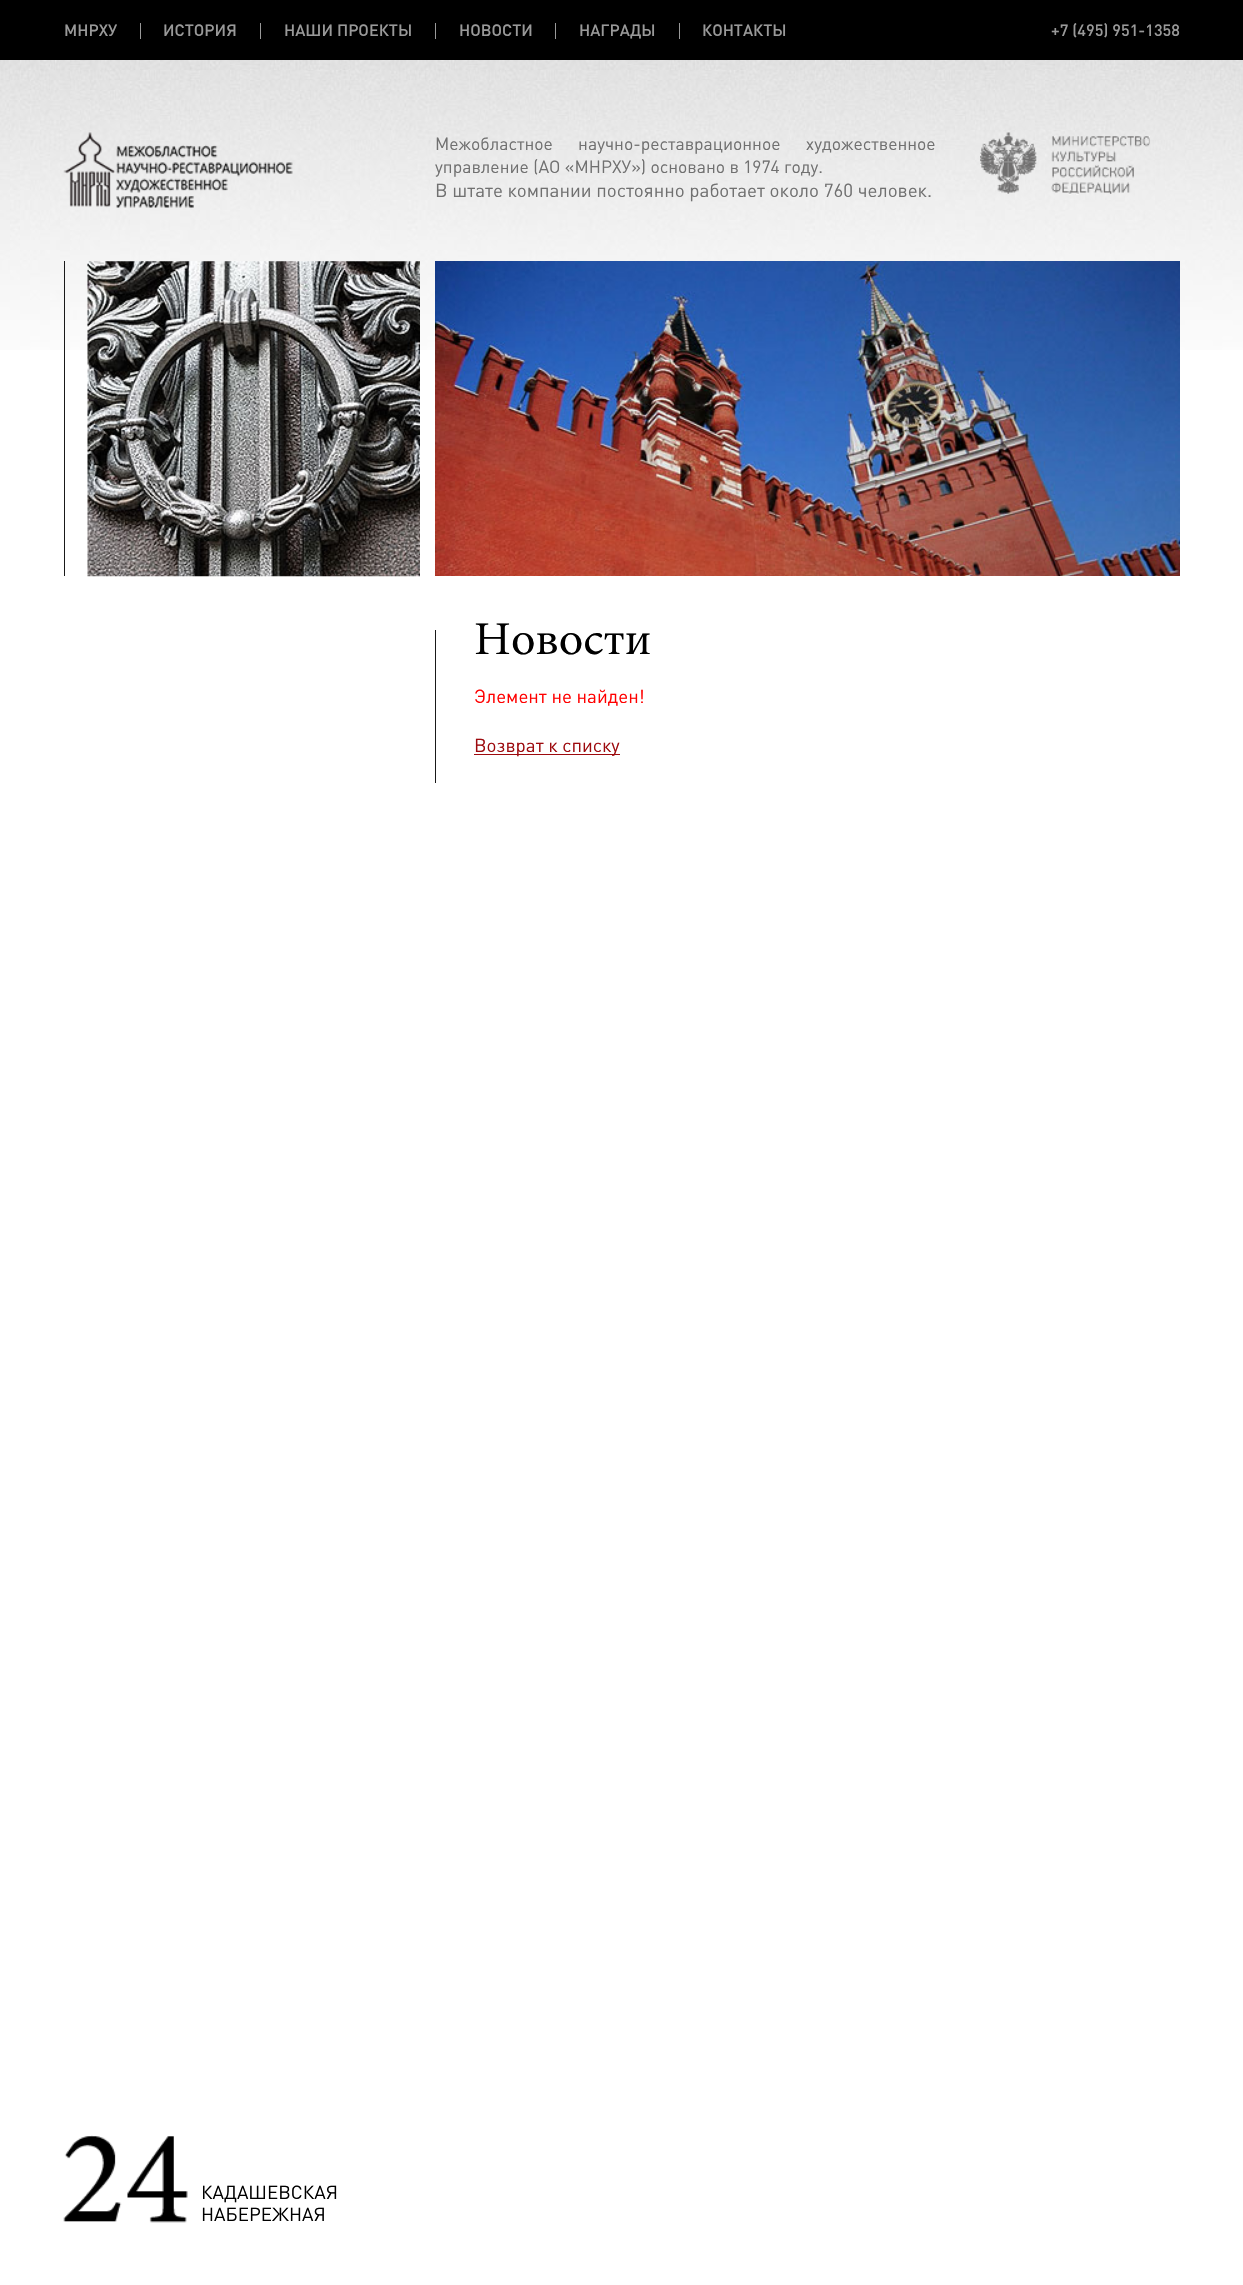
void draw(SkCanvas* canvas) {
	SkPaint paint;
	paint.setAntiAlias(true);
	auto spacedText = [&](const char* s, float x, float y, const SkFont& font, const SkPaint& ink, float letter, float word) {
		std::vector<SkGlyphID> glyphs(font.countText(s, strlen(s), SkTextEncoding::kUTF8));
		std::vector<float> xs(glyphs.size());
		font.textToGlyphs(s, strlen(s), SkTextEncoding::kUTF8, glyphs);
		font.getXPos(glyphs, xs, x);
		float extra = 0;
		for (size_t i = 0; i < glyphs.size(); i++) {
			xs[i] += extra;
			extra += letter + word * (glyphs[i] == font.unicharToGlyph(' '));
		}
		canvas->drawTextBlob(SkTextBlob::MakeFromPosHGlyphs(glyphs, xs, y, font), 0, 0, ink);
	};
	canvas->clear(0xffffffff);
	canvas->drawImageRect(SkImages::DeferredFromEncodedData(SkData::MakeFromFileName("img1.png")), SkRect::MakeXYWH(0, 60, 1243, 290), SkSamplingOptions());
	paint.setColor(0xff000000);
	canvas->drawRect(SkRect::MakeXYWH(0, 0, 1243, 60), paint);
	paint.setColor(0xff999999);
	canvas->drawRect(SkRect::MakeXYWH(140, 23, 1, 16), paint);
	SkFont f1(fontMgr->matchFamilyStyle("DIN", SkFontStyle(500, SkFontStyle::kNormal_Width, SkFontStyle::kUpright_Slant)), 16.25);
	f1.setSubpixel(true);
	canvas->drawString("МНРХУ", 64, 36, f1, paint);
	canvas->drawRect(SkRect::MakeXYWH(260, 23, 1, 16), paint);
	canvas->drawString("ИСТОРИЯ", 163, 36, f1, paint);
	canvas->drawRect(SkRect::MakeXYWH(435, 23, 1, 16), paint);
	canvas->drawString("НАШИ ПРОЕКТЫ", 284, 36, f1, paint);
	canvas->drawRect(SkRect::MakeXYWH(555, 23, 1, 16), paint);
	canvas->drawString("НОВОСТИ", 459, 36, f1, paint);
	canvas->drawRect(SkRect::MakeXYWH(679, 23, 1, 16), paint);
	canvas->drawString("НАГРАДЫ", 579, 36, f1, paint);
	canvas->drawString("КОНТАКТЫ", 702, 36, f1, paint);
	canvas->drawString("+7 (495) 951-1358", 1051, 36, f1, paint);
	canvas->drawImageRect(SkImages::DeferredFromEncodedData(SkData::MakeFromFileName("img2.png")), SkRect::MakeXYWH(63, 132, 230, 76), SkSamplingOptions());
	SkFont f2(fontMgr->matchFamilyStyle("DIN", SkFontStyle::Normal()), 17.5);
	f2.setSubpixel(true);
	paint.setColor(0xff707070);
	spacedText("Межобластное научно-реставрационное художественное", 435, 150, f2, paint, 0, 21);
	canvas->drawString("управление (АО «МНРХУ») основано в 1974 году.", 435, 173, f2, paint);
	SkFont f3(fontMgr->matchFamilyStyle("DIN", SkFontStyle::Normal()), 18.75);
	f3.setSubpixel(true);
	canvas->drawString("В штате компании постоянно работает около 760 человек.", 435, 197, f3, paint);
	canvas->drawImageRect(SkImages::DeferredFromEncodedData(SkData::MakeFromFileName("img3.png")), SkRect::MakeXYWH(980, 132, 170, 63), SkSamplingOptions());
	paint.setColor(0xff191919);
	canvas->drawRect(SkRect::MakeXYWH(64, 261, 1, 315), paint);
	canvas->drawImageRect(SkImages::DeferredFromEncodedData(SkData::MakeFromFileName("img4.png")), SkRect::MakeXYWH(87, 261, 333, 316), SkSamplingOptions());
	canvas->drawImageRect(SkImages::DeferredFromEncodedData(SkData::MakeFromFileName("img5.png")), SkRect::MakeXYWH(435, 261, 745, 315), SkSamplingOptions());
	canvas->drawRect(SkRect::MakeXYWH(435, 630, 1, 153), paint);
	SkFont f4(fontMgr->matchFamilyStyle("Minion", SkFontStyle::Normal()), 47);
	f4.setSubpixel(true);
	paint.setColor(0xff000000);
	canvas->drawString("Новости", 474, 654, f4, paint);
	paint.setColor(0xffff0000);
	canvas->drawString("Элемент не найден!", 474, 703, f3, paint);
	paint.setColor(0xff9d0a0e);
	canvas->drawRect(SkRect::MakeXYWH(474, 754, 146, 1), paint);
	canvas->drawString("Возврат к списку", 474, 752, f3, paint);
	canvas->drawImageRect(SkImages::DeferredFromEncodedData(SkData::MakeFromFileName("img6.png")), SkRect::MakeXYWH(63, 2135, 125, 88), SkSamplingOptions());
	paint.setColor(0xff000000);
	canvas->drawString("КАДАШЕВСКАЯ", 201, 2199, f3, paint);
	canvas->drawString("НАБЕРЕЖНАЯ", 201, 2221, f3, paint);
}
